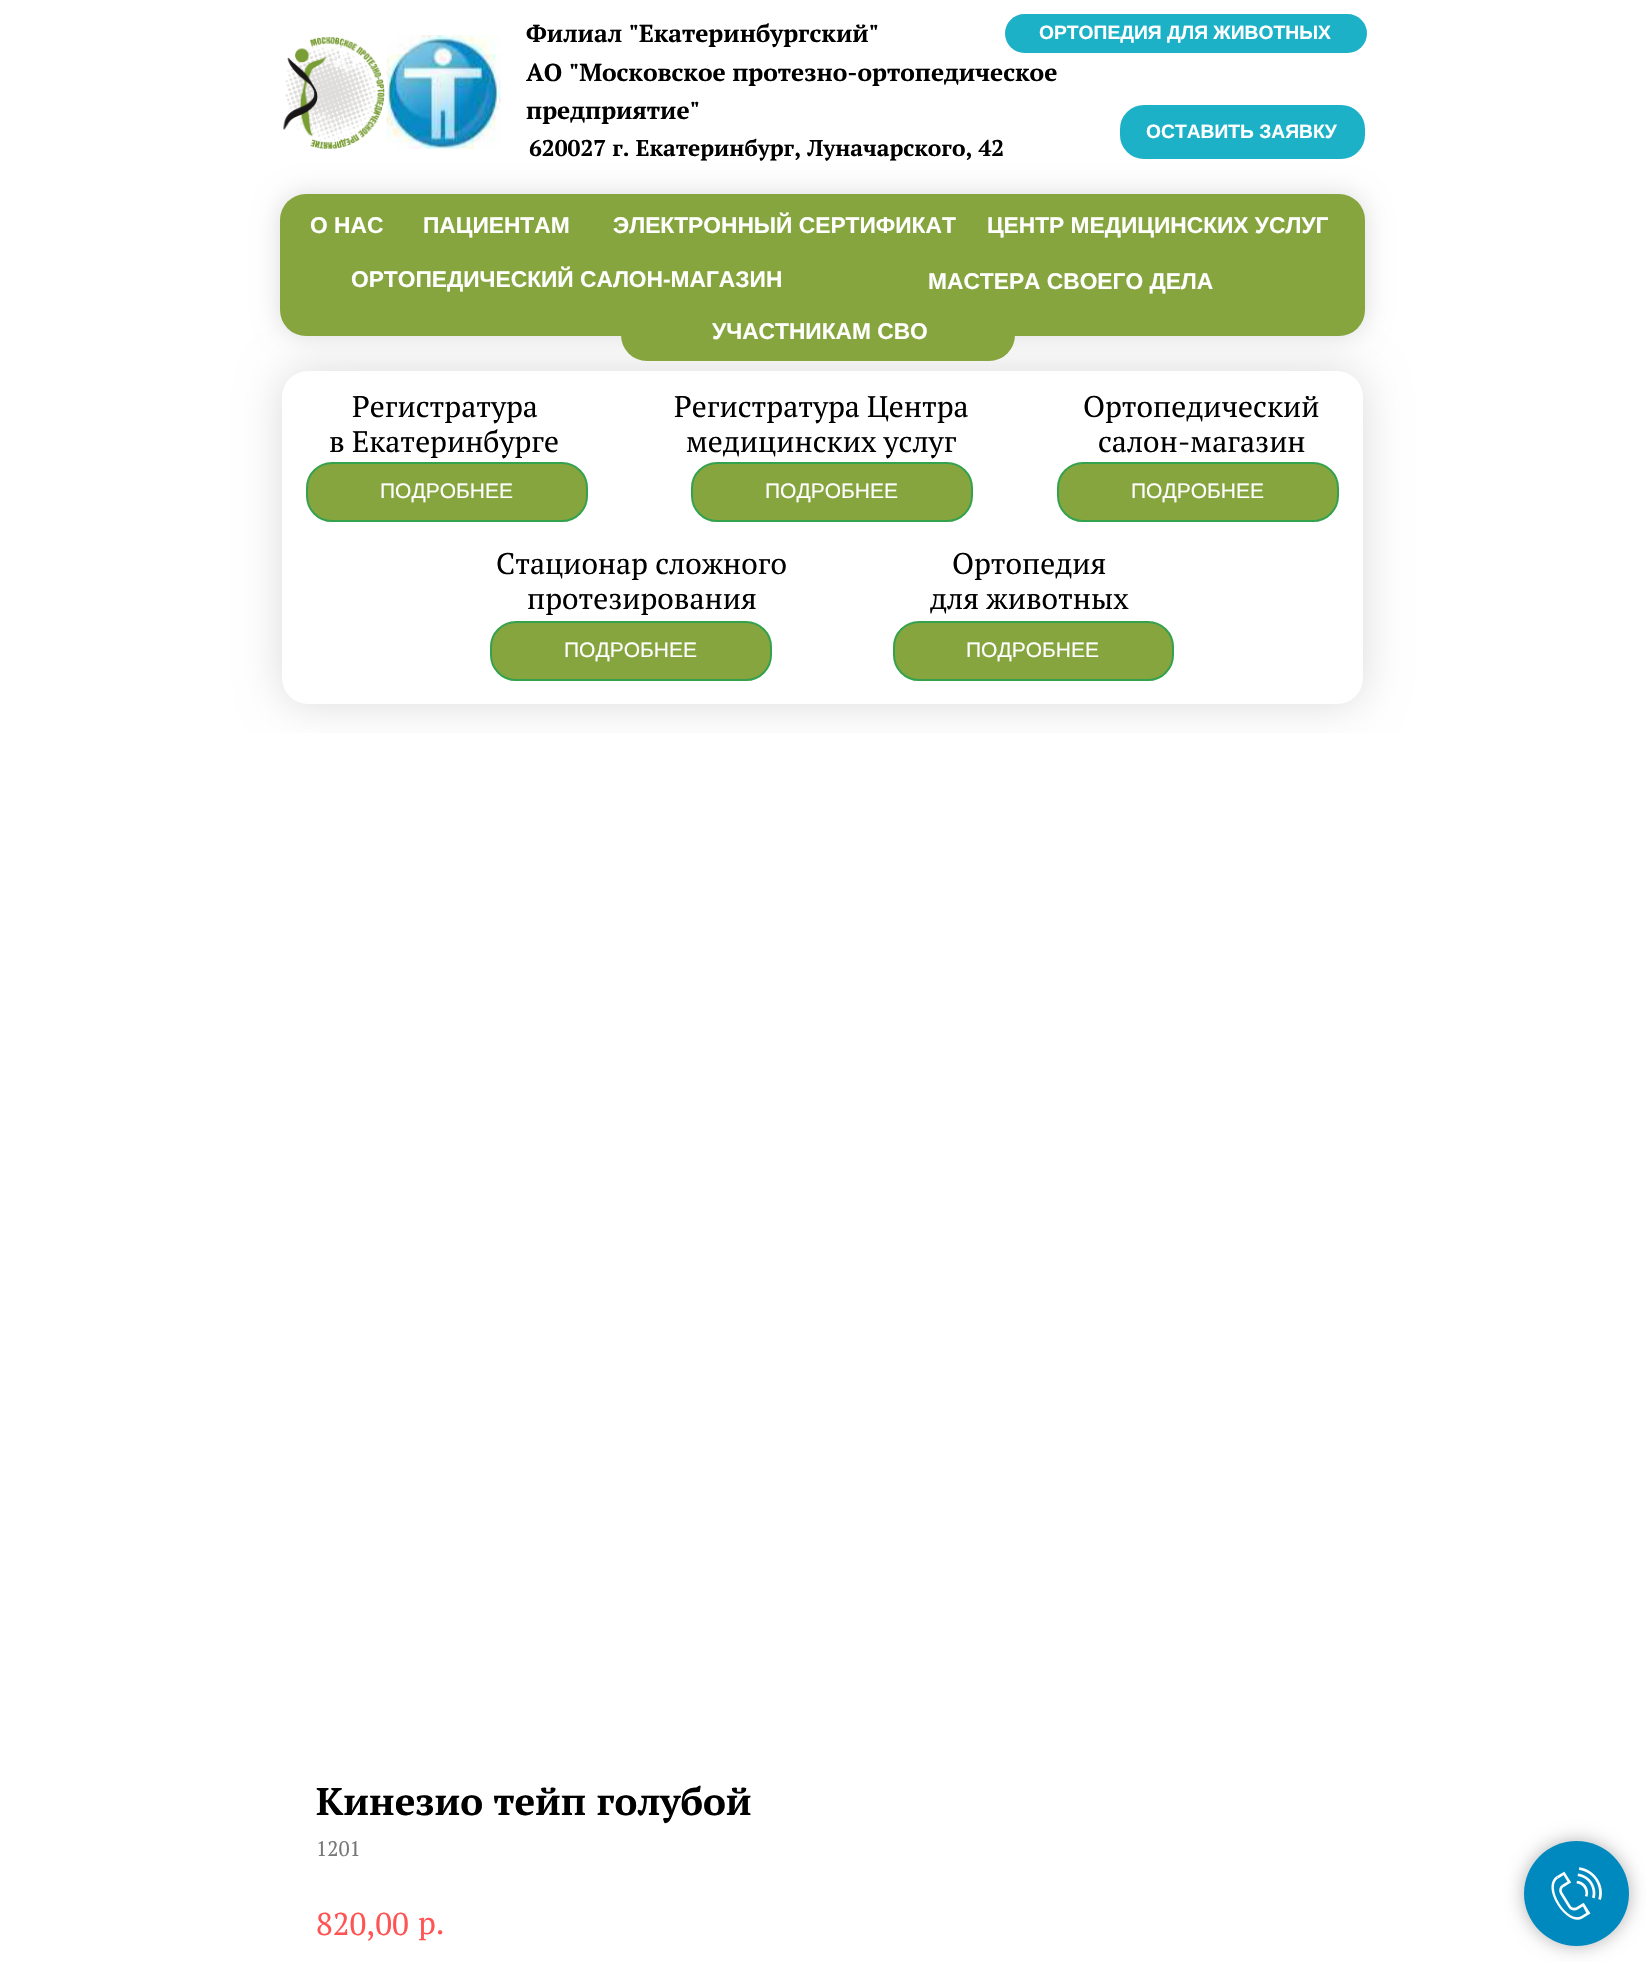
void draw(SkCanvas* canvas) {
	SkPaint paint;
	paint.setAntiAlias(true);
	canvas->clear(0xffffffff);
	canvas->drawImageRect(SkImages::DeferredFromEncodedData(SkData::MakeFromFileName("img1.png")), SkRect::MakeXYWH(283, 37, 102, 112), SkSamplingOptions());
	canvas->drawImageRect(SkImages::DeferredFromEncodedData(SkData::MakeFromFileName("img2.png")), SkRect::MakeXYWH(386, 35, 115, 114), SkSamplingOptions());
	SkFont f1(fontMgr->matchFamilyStyle("PT Serif", SkFontStyle::Bold()), 24.5);
	f1.setSubpixel(true);
	paint.setColor(0xff000000);
	canvas->drawString("Филиал \"Екатеринбургский\"", 526, 42, f1, paint);
	canvas->drawString("АО \"Московское протезно-ортопедическое", 526, 81, f1, paint);
	canvas->drawString("предприятие\"", 526, 119, f1, paint);
	paint.setColor(0xff1cb1c6);
	canvas->drawRoundRect(SkRect::MakeXYWH(1005, 14, 362, 39), 19.5, 19.5, paint);
	SkFont f2(fontMgr->matchFamilyStyle("Liberation Sans", SkFontStyle::Bold()), 19.25);
	f2.setSubpixel(true);
	paint.setColor(0xffffffff);
	canvas->drawString("ОРТОПЕДИЯ ДЛЯ ЖИВОТНЫХ", 1039, 39, f2, paint);
	canvas->save();
	canvas->clipRect(SkRect::MakeXYWH(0, 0, 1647, 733));
	paint.setColor(0xffdbdbdb);
	paint.setMaskFilter(SkMaskFilter::MakeBlur(kNormal_SkBlurStyle, 22));
	canvas->drawRoundRect(SkRect::MakeXYWH(282, 371, 1081, 333), 26, 26, paint);
	paint.setMaskFilter(nullptr);
	canvas->restore();
	paint.setColor(0xffffffff);
	canvas->drawRoundRect(SkRect::MakeXYWH(282, 371, 1081, 333), 26, 26, paint);
	paint.setColor(0xffdbdbdb);
	paint.setMaskFilter(SkMaskFilter::MakeBlur(kNormal_SkBlurStyle, 13));
	canvas->drawRoundRect(SkRect::MakeXYWH(280, 194, 1085, 142), 26, 26, paint);
	paint.setMaskFilter(nullptr);
	paint.setColor(0xff1cb1c6);
	canvas->drawRoundRect(SkRect::MakeXYWH(1119, 104, 247, 56), 25, 25, paint);
	paint.setStroke(true);
	paint.setStrokeWidth(2);
	paint.setColor(0xffffffff);
	canvas->drawRoundRect(SkRect::MakeXYWH(1119, 104, 247, 56), 25, 25, paint);
	paint.setStroke(false);
	canvas->drawString("ОСТАВИТЬ ЗАЯВКУ", 1146, 138, f2, paint);
	SkFont f3(fontMgr->matchFamilyStyle("PT Serif", SkFontStyle::Bold()), 22.75);
	f3.setSubpixel(true);
	paint.setColor(0xff000000);
	canvas->drawString("620 027 г. Екатеринбург, Луначарского, 42", 529, 156, f3, paint);
	paint.setColor(0xff86a53f);
	canvas->drawRoundRect(SkRect::MakeXYWH(280, 194, 1085, 142), 26, 26, paint);
	SkFont f4(fontMgr->matchFamilyStyle("Liberation Sans", SkFontStyle::Bold()), 22.75);
	f4.setSubpixel(true);
	paint.setColor(0xffffffff);
	canvas->drawString("О НАС", 310, 233, f4, paint);
	canvas->drawString("ПАЦИЕНТАМ", 423, 233, f4, paint);
	canvas->drawString("ЭЛЕКТРОННЫЙ СЕРТИФИКАТ", 613, 233, f4, paint);
	canvas->drawString("ЦЕНТР МЕДИЦИНСКИХ УСЛУГ", 987, 233, f4, paint);
	canvas->drawString("ОРТОПЕДИЧЕСКИЙ САЛОН-МАГАЗИН", 351, 287, f4, paint);
	canvas->drawString("МАСТЕРА СВОЕГО ДЕЛА", 928, 289, f4, paint);
	paint.setColor(0xff86a53f);
	canvas->drawRoundRect(SkRect::MakeXYWH(621, 303, 394, 58), 26, 26, paint);
	paint.setColor(0xffffffff);
	canvas->drawString("УЧАСТНИКАМ СВО", 712, 339, f4, paint);
	SkFont f5(fontMgr->matchFamilyStyle("PT Serif", SkFontStyle::Normal()), 29.75);
	f5.setSubpixel(true);
	paint.setColor(0xff000000);
	canvas->drawString("Регистратура", 352, 417, f5, paint);
	canvas->drawString("в Екатеринбурге", 329, 452, f5, paint);
	canvas->drawString("Регистратура Центра", 674, 417, f5, paint);
	canvas->drawString("медицинских услуг", 686, 452, f5, paint);
	canvas->drawString("Ортопедический", 1083, 417, f5, paint);
	canvas->drawString("салон-магазин", 1098, 452, f5, paint);
	paint.setColor(0xff86a53f);
	canvas->drawRoundRect(SkRect::MakeXYWH(307, 463, 280, 58), 25, 25, paint);
	paint.setStroke(true);
	paint.setColor(0xff34a14d);
	canvas->drawRoundRect(SkRect::MakeXYWH(307, 463, 280, 58), 25, 25, paint);
	SkFont f6(fontMgr->matchFamilyStyle("Liberation Sans", SkFontStyle::Normal()), 21);
	f6.setSubpixel(true);
	paint.setStroke(false);
	paint.setColor(0xffffffff);
	canvas->drawString("ПОДРОБНЕЕ", 380, 498, f6, paint);
	paint.setColor(0xff86a53f);
	canvas->drawRoundRect(SkRect::MakeXYWH(692, 463, 280, 58), 25, 25, paint);
	paint.setStroke(true);
	paint.setColor(0xff34a14d);
	canvas->drawRoundRect(SkRect::MakeXYWH(692, 463, 280, 58), 25, 25, paint);
	paint.setStroke(false);
	paint.setColor(0xffffffff);
	canvas->drawString("ПОДРОБНЕЕ", 765, 498, f6, paint);
	paint.setColor(0xff86a53f);
	canvas->drawRoundRect(SkRect::MakeXYWH(1058, 463, 280, 58), 25, 25, paint);
	paint.setStroke(true);
	paint.setColor(0xff34a14d);
	canvas->drawRoundRect(SkRect::MakeXYWH(1058, 463, 280, 58), 25, 25, paint);
	paint.setStroke(false);
	paint.setColor(0xffffffff);
	canvas->drawString("ПОДРОБНЕЕ", 1131, 498, f6, paint);
	paint.setColor(0xff000000);
	canvas->drawString("Стационар сложного", 496, 574, f5, paint);
	canvas->drawString("протезирования", 527, 609, f5, paint);
	canvas->drawString("Ортопедия", 952, 574, f5, paint);
	canvas->drawString("для животных", 930, 609, f5, paint);
	paint.setColor(0xff86a53f);
	canvas->drawRoundRect(SkRect::MakeXYWH(491, 622, 280, 58), 25, 25, paint);
	paint.setStroke(true);
	paint.setColor(0xff34a14d);
	canvas->drawRoundRect(SkRect::MakeXYWH(491, 622, 280, 58), 25, 25, paint);
	paint.setStroke(false);
	paint.setColor(0xffffffff);
	canvas->drawString("ПОДРОБНЕЕ", 564, 657, f6, paint);
	paint.setColor(0xff86a53f);
	canvas->drawRoundRect(SkRect::MakeXYWH(894, 622, 279, 58), 25, 25, paint);
	paint.setStroke(true);
	paint.setColor(0xff34a14d);
	canvas->drawRoundRect(SkRect::MakeXYWH(894, 622, 279, 58), 25, 25, paint);
	paint.setStroke(false);
	paint.setColor(0xffffffff);
	canvas->drawString("ПОДРОБНЕЕ", 966, 657, f6, paint);
	paint.setColor(0x4d000000);
	paint.setMaskFilter(SkMaskFilter::MakeBlur(kNormal_SkBlurStyle, 9));
	canvas->drawRoundRect(SkRect::MakeXYWH(1524, 1841, 105, 105), 52.5, 52.5, paint);
	paint.setMaskFilter(nullptr);
	paint.setColor(0xff0089bf);
	canvas->drawCircle(1576.5, 1893.5, 52.5, paint);
	canvas->drawImageRect(SkImages::DeferredFromEncodedData(SkData::MakeFromFileName("img3.png")), SkRect::MakeXYWH(1551, 1867, 51, 53), SkSamplingOptions());
	SkFont f7(fontMgr->matchFamilyStyle("PT Serif", SkFontStyle::Bold()), 38.5);
	f7.setSubpixel(true);
	paint.setColor(0xff000000);
	canvas->drawString("Кинезио тейп голубой", 316, 1815, f7, paint);
	SkFont f8(fontMgr->matchFamilyStyle("PT Serif", SkFontStyle::Normal()), 21);
	f8.setSubpixel(true);
	paint.setColor(0xff777777);
	canvas->drawString("1201", 316, 1856, f8, paint);
	SkFont f9(fontMgr->matchFamilyStyle("PT Serif", SkFontStyle::Normal()), 31.5);
	f9.setSubpixel(true);
	paint.setColor(0xffff5454);
	canvas->drawString("820,00", 316, 1935, f9, paint);
	canvas->drawString("р.", 418, 1934, f9, paint);
}
